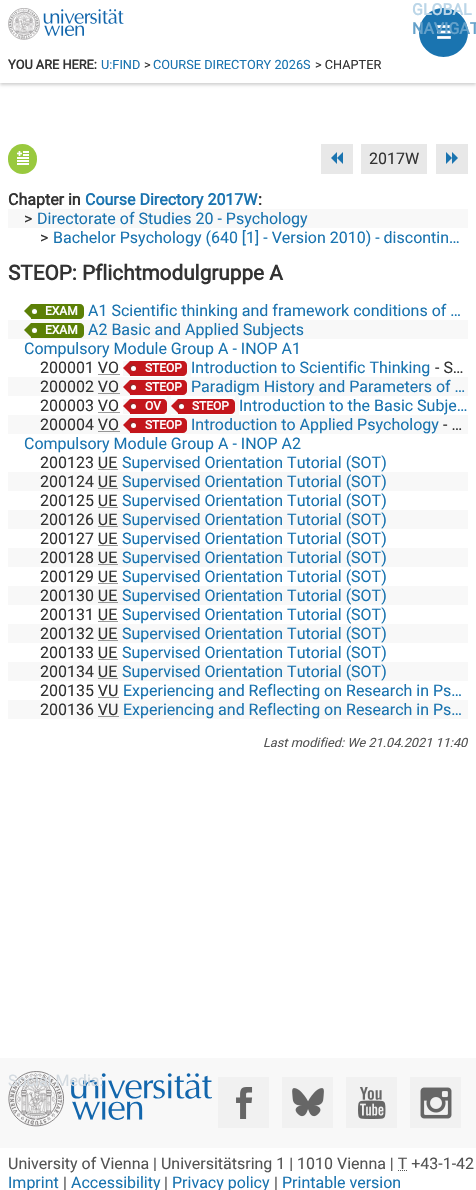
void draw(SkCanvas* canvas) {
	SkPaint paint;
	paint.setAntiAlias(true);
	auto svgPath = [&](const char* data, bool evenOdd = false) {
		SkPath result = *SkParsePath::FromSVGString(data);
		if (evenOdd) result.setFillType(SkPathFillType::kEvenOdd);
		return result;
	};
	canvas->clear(0xffffffff);
	paint.setColor(0x2e000000);
	paint.setMaskFilter(SkMaskFilter::MakeBlur(kNormal_SkBlurStyle, 1.5));
	canvas->drawRect(SkRect::MakeXYWH(0, 2, 476, 83), paint);
	paint.setMaskFilter(nullptr);
	paint.setColor(0xffffffff);
	canvas->drawRect(SkRect::MakeXYWH(0, 0, 476, 83), paint);
	canvas->drawImageRect(SkImages::DeferredFromEncodedData(SkData::MakeFromFileName("img1.png")), SkRect::MakeXYWH(8, 8, 116, 32), SkSamplingOptions());
	paint.setColor(0xff1a74b0);
	canvas->drawCircle(443.5, 32.5, 28.5, paint);
	paint.setStroke(true);
	paint.setStrokeWidth(8);
	paint.setColor(0xffffffff);
	canvas->drawCircle(443.5, 32.5, 28.5, paint);
	canvas->drawImageRect(SkImages::DeferredFromEncodedData(SkData::MakeFromFileName("img2.png")), SkRect::MakeXYWH(437, 25, 14, 14), SkSamplingOptions());
	SkFont f1(fontMgr->matchFamilyStyle("Roboto", SkFontStyle::Bold()), 16);
	f1.setSubpixel(true);
	paint.setStroke(false);
	paint.setColor(0xffbbd6e8);
	canvas->drawString("GLOBAL", 412, 15, f1, paint);
	paint.setColor(0xff64a1ca);
	canvas->drawString("NAVIGAT", 412, 34, f1, paint);
	SkFont f2(fontMgr->matchFamilyStyle("Roboto", SkFontStyle::Bold()), 12.75);
	f2.setSubpixel(true);
	paint.setColor(0xff333333);
	canvas->drawString("YOU ARE HERE:", 8, 69, f2, paint);
	SkFont f3(fontMgr->matchFamilyStyle("Roboto", SkFontStyle::Normal()), 12.75);
	f3.setSubpixel(true);
	paint.setColor(0xff1a74b0);
	canvas->drawString("U:FIND", 101, 69, f3, paint);
	paint.setColor(0xff333333);
	canvas->drawString(">", 144, 69, f3, paint);
	paint.setColor(0xff1a74b0);
	canvas->drawString("COURSE DIRECTORY 2026S", 153, 69, f3, paint);
	paint.setColor(0xff333333);
	canvas->drawString("> CHAPTER", 315, 69, f3, paint);
	paint.setColor(0xff99c93e);
	canvas->drawRoundRect(SkRect::MakeXYWH(8, 144, 29, 30), 14.5, 14.5, paint);
	canvas->drawImageRect(SkImages::DeferredFromEncodedData(SkData::MakeFromFileName("img3.png")), SkRect::MakeXYWH(17, 151, 12, 14), SkSamplingOptions());
	paint.setColor(0xffe8e8e8);
	canvas->drawRect(SkRect::MakeXYWH(321, 144, 32, 30), paint);
	canvas->drawImageRect(SkImages::DeferredFromEncodedData(SkData::MakeFromFileName("img4.png")), SkRect::MakeXYWH(331, 152, 12, 12), SkSamplingOptions());
	canvas->drawRect(SkRect::MakeXYWH(361, 144, 66, 30), paint);
	SkFont f4(fontMgr->matchFamilyStyle("Roboto", SkFontStyle::Normal()), 16);
	f4.setSubpixel(true);
	paint.setColor(0xff333333);
	canvas->drawString("2017W", 369, 164, f4, paint);
	paint.setColor(0xffe8e8e8);
	canvas->drawRect(SkRect::MakeXYWH(436, 144, 32, 30), paint);
	canvas->drawImageRect(SkImages::DeferredFromEncodedData(SkData::MakeFromFileName("img5.png")), SkRect::MakeXYWH(446, 152, 12, 12), SkSamplingOptions());
	paint.setColor(0xff333333);
	canvas->drawString("Chapter in", 8, 205, f1, paint);
	paint.setColor(0xff1a74b0);
	canvas->drawString("Course Directory 2017W", 85, 205, f1, paint);
	paint.setColor(0xff333333);
	canvas->drawString(":", 258, 205, f1, paint);
	paint.setColor(0xfff8f8f8);
	canvas->drawRect(SkRect::MakeXYWH(8, 209, 460, 19), paint);
	paint.setColor(0xff333333);
	canvas->drawString(">", 24, 224, f4, paint);
	paint.setColor(0xff1a74b0);
	canvas->drawString("Directorate of Studies 20 - Psychology", 37, 224, f4, paint);
	paint.setColor(0xff333333);
	canvas->drawString(">", 40, 243, f4, paint);
	paint.setColor(0xff1a74b0);
	canvas->drawString("Bachelor Psychology (640 [1] - Version 2010) - discontin…", 53, 243, f4, paint);
	SkFont f5(fontMgr->matchFamilyStyle("Roboto", SkFontStyle::Bold()), 20.75);
	f5.setSubpixel(true);
	paint.setColor(0xff333333);
	canvas->drawString("STEOP: Pflichtmodulgruppe A", 8, 280, f5, paint);
	paint.setColor(0xff5c8006);
	canvas->drawPath(svgPath("M31 304V318L24 311Z"), paint);
	canvas->drawPath(svgPath("M31 304H80C82 304 84 306 84 308V315C84 317 82 319 80 319H31Z"), paint);
	paint.setColor(0xff688d29);
	paint.setMaskFilter(SkMaskFilter::MakeBlur(kNormal_SkBlurStyle, 1));
	canvas->drawRoundRect(SkRect::MakeXYWH(31, 308, 5, 5), 2.5, 2.5, paint);
	paint.setMaskFilter(nullptr);
	paint.setColor(0xffffffff);
	canvas->drawCircle(34.5, 311.5, 2.5, paint);
	SkFont f6(fontMgr->matchFamilyStyle("Roboto", SkFontStyle::Bold()), 12);
	f6.setSubpixel(true);
	canvas->drawString("EXAM", 45, 315, f6, paint);
	paint.setColor(0xff1a74b0);
	canvas->drawString("A1 Scientific thinking and framework conditions of …", 88, 316, f4, paint);
	paint.setColor(0xfff8f8f8);
	canvas->drawRect(SkRect::MakeXYWH(8, 320, 460, 19), paint);
	paint.setColor(0xff5c8006);
	canvas->drawPath(svgPath("M31 323V337L24 330Z"), paint);
	canvas->drawPath(svgPath("M31 323H80C82 323 84 325 84 327V334C84 336 82 338 80 338H31Z"), paint);
	paint.setColor(0xff688d29);
	paint.setMaskFilter(SkMaskFilter::MakeBlur(kNormal_SkBlurStyle, 1));
	canvas->drawRoundRect(SkRect::MakeXYWH(31, 327, 5, 5), 2.5, 2.5, paint);
	paint.setMaskFilter(nullptr);
	paint.setColor(0xffffffff);
	canvas->drawCircle(34.5, 330.5, 2.5, paint);
	canvas->drawString("EXAM", 45, 334, f6, paint);
	paint.setColor(0xff1a74b0);
	canvas->drawString("A2 Basic and Applied Subjects", 88, 335, f4, paint);
	canvas->drawString("Compulsory Module Group A - INOP A1", 24, 354, f4, paint);
	paint.setColor(0xff333333);
	canvas->drawString("200001 VO", 40, 373, f4, paint);
	paint.setColor(0xfff8f8f8);
	canvas->drawRect(SkRect::MakeXYWH(123, 361, 64, 15), paint);
	canvas->drawRect(SkRect::MakeXYWH(187, 358, 4, 19), paint);
	paint.setColor(0xffc4161c);
	canvas->drawPath(svgPath("M130 361V375L123 368Z"), paint);
	canvas->drawPath(svgPath("M130 361H183C185 361 187 363 187 365V372C187 374 185 376 183 376H130Z"), paint);
	paint.setColor(0xff723230);
	paint.setMaskFilter(SkMaskFilter::MakeBlur(kNormal_SkBlurStyle, 1));
	canvas->drawRoundRect(SkRect::MakeXYWH(130, 365, 5, 5), 2.5, 2.5, paint);
	paint.setMaskFilter(nullptr);
	paint.setColor(0xffffffff);
	canvas->drawCircle(133.5, 368.5, 2.5, paint);
	canvas->drawString("STEOP", 145, 372, f6, paint);
	paint.setColor(0xff1a74b0);
	canvas->drawString("Introduction to Scientific Thinking", 191, 373, f4, paint);
	paint.setColor(0xff333333);
	canvas->drawString("- S…", 435, 373, f4, paint);
	paint.setStroke(true);
	paint.setStrokeWidth(1);
	paint.setPathEffect(SkDashPathEffect::Make({{1, 1}}, 0));
	canvas->drawPath(svgPath("M98.5 374.5H119.5"), paint);
	paint.setPathEffect(nullptr);
	paint.setStroke(false);
	paint.setColor(0xfff8f8f8);
	canvas->drawRect(SkRect::MakeXYWH(8, 377, 460, 19), paint);
	paint.setColor(0xff333333);
	canvas->drawString("200002 VO", 40, 392, f4, paint);
	paint.setColor(0xffc4161c);
	canvas->drawPath(svgPath("M130 380V394L123 387Z"), paint);
	canvas->drawPath(svgPath("M130 380H183C185 380 187 382 187 384V391C187 393 185 395 183 395H130Z"), paint);
	paint.setColor(0xff723230);
	paint.setMaskFilter(SkMaskFilter::MakeBlur(kNormal_SkBlurStyle, 1));
	canvas->drawRoundRect(SkRect::MakeXYWH(130, 384, 5, 5), 2.5, 2.5, paint);
	paint.setMaskFilter(nullptr);
	paint.setColor(0xffffffff);
	canvas->drawCircle(133.5, 387.5, 2.5, paint);
	canvas->drawString("STEOP", 145, 391, f6, paint);
	paint.setColor(0xff1a74b0);
	canvas->drawString("Paradigm History and Parameters of …", 191, 392, f4, paint);
	paint.setStroke(true);
	paint.setColor(0xff333333);
	paint.setPathEffect(SkDashPathEffect::Make({{1, 1}}, 0));
	canvas->drawPath(svgPath("M98.5 393.5H119.5"), paint);
	paint.setPathEffect(nullptr);
	paint.setStroke(false);
	canvas->drawString("200003 VO", 40, 411, f4, paint);
	paint.setColor(0xfff8f8f8);
	canvas->drawRect(SkRect::MakeXYWH(123, 399, 44, 15), paint);
	canvas->drawRect(SkRect::MakeXYWH(167, 396, 4, 19), paint);
	canvas->drawRect(SkRect::MakeXYWH(171, 399, 64, 15), paint);
	canvas->drawRect(SkRect::MakeXYWH(235, 396, 4, 19), paint);
	paint.setColor(0xffc4161c);
	canvas->drawPath(svgPath("M130 399V413L123 406Z"), paint);
	canvas->drawPath(svgPath("M130 399H163C165 399 167 401 167 403V410C167 412 165 414 163 414H130Z"), paint);
	paint.setColor(0xff723230);
	paint.setMaskFilter(SkMaskFilter::MakeBlur(kNormal_SkBlurStyle, 1));
	canvas->drawRoundRect(SkRect::MakeXYWH(130, 403, 5, 5), 2.5, 2.5, paint);
	paint.setMaskFilter(nullptr);
	paint.setColor(0xffffffff);
	canvas->drawCircle(133.5, 406.5, 2.5, paint);
	canvas->drawString("OV", 145, 410, f6, paint);
	paint.setColor(0xffc4161c);
	canvas->drawPath(svgPath("M178 399V413L171 406Z"), paint);
	canvas->drawPath(svgPath("M178 399H231C233 399 235 401 235 403V410C235 412 233 414 231 414H178Z"), paint);
	paint.setColor(0xff723230);
	paint.setMaskFilter(SkMaskFilter::MakeBlur(kNormal_SkBlurStyle, 1));
	canvas->drawRoundRect(SkRect::MakeXYWH(178, 403, 5, 5), 2.5, 2.5, paint);
	paint.setMaskFilter(nullptr);
	paint.setColor(0xffffffff);
	canvas->drawCircle(181.5, 406.5, 2.5, paint);
	canvas->drawString("STEOP", 192, 410, f6, paint);
	paint.setColor(0xff1a74b0);
	canvas->drawString("Introduction to the Basic Subje…", 239, 411, f4, paint);
	paint.setStroke(true);
	paint.setColor(0xff333333);
	paint.setPathEffect(SkDashPathEffect::Make({{1, 1}}, 0));
	canvas->drawPath(svgPath("M98.5 412.5H119.5"), paint);
	paint.setPathEffect(nullptr);
	paint.setStroke(false);
	paint.setColor(0xfff8f8f8);
	canvas->drawRect(SkRect::MakeXYWH(8, 415, 460, 19), paint);
	paint.setColor(0xff333333);
	canvas->drawString("200004 VO", 40, 430, f4, paint);
	paint.setColor(0xffc4161c);
	canvas->drawPath(svgPath("M130 418V432L123 425Z"), paint);
	canvas->drawPath(svgPath("M130 418H183C185 418 187 420 187 422V429C187 431 185 433 183 433H130Z"), paint);
	paint.setColor(0xff723230);
	paint.setMaskFilter(SkMaskFilter::MakeBlur(kNormal_SkBlurStyle, 1));
	canvas->drawRoundRect(SkRect::MakeXYWH(130, 422, 5, 5), 2.5, 2.5, paint);
	paint.setMaskFilter(nullptr);
	paint.setColor(0xffffffff);
	canvas->drawCircle(133.5, 425.5, 2.5, paint);
	canvas->drawString("STEOP", 145, 429, f6, paint);
	paint.setColor(0xff1a74b0);
	canvas->drawString("Introduction to Applied Psychology", 191, 430, f4, paint);
	paint.setColor(0xff333333);
	canvas->drawString("- …", 443, 430, f4, paint);
	paint.setStroke(true);
	paint.setPathEffect(SkDashPathEffect::Make({{1, 1}}, 0));
	canvas->drawPath(svgPath("M98.5 431.5H119.5"), paint);
	paint.setPathEffect(nullptr);
	paint.setStroke(false);
	paint.setColor(0xff1a74b0);
	canvas->drawString("Compulsory Module Group A - INOP A2", 24, 449, f4, paint);
	paint.setColor(0xff333333);
	canvas->drawString("200123 UE", 40, 468, f4, paint);
	paint.setColor(0xff1a74b0);
	canvas->drawString("Supervised Orientation Tutorial (SOT)", 122, 468, f4, paint);
	paint.setStroke(true);
	paint.setColor(0xff333333);
	paint.setPathEffect(SkDashPathEffect::Make({{1, 1}}, 0));
	canvas->drawPath(svgPath("M98.5 469.5H118"), paint);
	paint.setPathEffect(nullptr);
	paint.setStroke(false);
	paint.setColor(0xfff8f8f8);
	canvas->drawRect(SkRect::MakeXYWH(8, 472, 460, 19), paint);
	paint.setColor(0xff333333);
	canvas->drawString("200124 UE", 40, 487, f4, paint);
	paint.setColor(0xff1a74b0);
	canvas->drawString("Supervised Orientation Tutorial (SOT)", 122, 487, f4, paint);
	paint.setStroke(true);
	paint.setColor(0xff333333);
	paint.setPathEffect(SkDashPathEffect::Make({{1, 1}}, 0));
	canvas->drawPath(svgPath("M98.5 488.5H118"), paint);
	paint.setPathEffect(nullptr);
	paint.setStroke(false);
	canvas->drawString("200125 UE", 40, 506, f4, paint);
	paint.setColor(0xff1a74b0);
	canvas->drawString("Supervised Orientation Tutorial (SOT)", 122, 506, f4, paint);
	paint.setStroke(true);
	paint.setColor(0xff333333);
	paint.setPathEffect(SkDashPathEffect::Make({{1, 1}}, 0));
	canvas->drawPath(svgPath("M98.5 507.5H118"), paint);
	paint.setPathEffect(nullptr);
	paint.setStroke(false);
	paint.setColor(0xfff8f8f8);
	canvas->drawRect(SkRect::MakeXYWH(8, 510, 460, 19), paint);
	paint.setColor(0xff333333);
	canvas->drawString("200126 UE", 40, 525, f4, paint);
	paint.setColor(0xff1a74b0);
	canvas->drawString("Supervised Orientation Tutorial (SOT)", 122, 525, f4, paint);
	paint.setStroke(true);
	paint.setColor(0xff333333);
	paint.setPathEffect(SkDashPathEffect::Make({{1, 1}}, 0));
	canvas->drawPath(svgPath("M98.5 526.5H118"), paint);
	paint.setPathEffect(nullptr);
	paint.setStroke(false);
	canvas->drawString("200127 UE", 40, 544, f4, paint);
	paint.setColor(0xff1a74b0);
	canvas->drawString("Supervised Orientation Tutorial (SOT)", 122, 544, f4, paint);
	paint.setStroke(true);
	paint.setColor(0xff333333);
	paint.setPathEffect(SkDashPathEffect::Make({{1, 1}}, 0));
	canvas->drawPath(svgPath("M98.5 545.5H118"), paint);
	paint.setPathEffect(nullptr);
	paint.setStroke(false);
	paint.setColor(0xfff8f8f8);
	canvas->drawRect(SkRect::MakeXYWH(8, 548, 460, 19), paint);
	paint.setColor(0xff333333);
	canvas->drawString("200128 UE", 40, 563, f4, paint);
	paint.setColor(0xff1a74b0);
	canvas->drawString("Supervised Orientation Tutorial (SOT)", 122, 563, f4, paint);
	paint.setStroke(true);
	paint.setColor(0xff333333);
	paint.setPathEffect(SkDashPathEffect::Make({{1, 1}}, 0));
	canvas->drawPath(svgPath("M98.5 564.5H118"), paint);
	paint.setPathEffect(nullptr);
	paint.setStroke(false);
	canvas->drawString("200129 UE", 40, 582, f4, paint);
	paint.setColor(0xff1a74b0);
	canvas->drawString("Supervised Orientation Tutorial (SOT)", 122, 582, f4, paint);
	paint.setStroke(true);
	paint.setColor(0xff333333);
	paint.setPathEffect(SkDashPathEffect::Make({{1, 1}}, 0));
	canvas->drawPath(svgPath("M98.5 583.5H118"), paint);
	paint.setPathEffect(nullptr);
	paint.setStroke(false);
	paint.setColor(0xfff8f8f8);
	canvas->drawRect(SkRect::MakeXYWH(8, 586, 460, 19), paint);
	paint.setColor(0xff333333);
	canvas->drawString("200130 UE", 40, 601, f4, paint);
	paint.setColor(0xff1a74b0);
	canvas->drawString("Supervised Orientation Tutorial (SOT)", 122, 601, f4, paint);
	paint.setStroke(true);
	paint.setColor(0xff333333);
	paint.setPathEffect(SkDashPathEffect::Make({{1, 1}}, 0));
	canvas->drawPath(svgPath("M98.5 602.5H118"), paint);
	paint.setPathEffect(nullptr);
	paint.setStroke(false);
	canvas->drawString("200131 UE", 40, 620, f4, paint);
	paint.setColor(0xff1a74b0);
	canvas->drawString("Supervised Orientation Tutorial (SOT)", 122, 620, f4, paint);
	paint.setStroke(true);
	paint.setColor(0xff333333);
	paint.setPathEffect(SkDashPathEffect::Make({{1, 1}}, 0));
	canvas->drawPath(svgPath("M98.5 621.5H118"), paint);
	paint.setPathEffect(nullptr);
	paint.setStroke(false);
	paint.setColor(0xfff8f8f8);
	canvas->drawRect(SkRect::MakeXYWH(8, 624, 460, 19), paint);
	paint.setColor(0xff333333);
	canvas->drawString("200132 UE", 40, 639, f4, paint);
	paint.setColor(0xff1a74b0);
	canvas->drawString("Supervised Orientation Tutorial (SOT)", 122, 639, f4, paint);
	paint.setStroke(true);
	paint.setColor(0xff333333);
	paint.setPathEffect(SkDashPathEffect::Make({{1, 1}}, 0));
	canvas->drawPath(svgPath("M98.5 640.5H118"), paint);
	paint.setPathEffect(nullptr);
	paint.setStroke(false);
	canvas->drawString("200133 UE", 40, 658, f4, paint);
	paint.setColor(0xff1a74b0);
	canvas->drawString("Supervised Orientation Tutorial (SOT)", 122, 658, f4, paint);
	paint.setStroke(true);
	paint.setColor(0xff333333);
	paint.setPathEffect(SkDashPathEffect::Make({{1, 1}}, 0));
	canvas->drawPath(svgPath("M98.5 659.5H118"), paint);
	paint.setPathEffect(nullptr);
	paint.setStroke(false);
	paint.setColor(0xfff8f8f8);
	canvas->drawRect(SkRect::MakeXYWH(8, 662, 460, 19), paint);
	paint.setColor(0xff333333);
	canvas->drawString("200134 UE", 40, 677, f4, paint);
	paint.setColor(0xff1a74b0);
	canvas->drawString("Supervised Orientation Tutorial (SOT)", 122, 677, f4, paint);
	paint.setStroke(true);
	paint.setColor(0xff333333);
	paint.setPathEffect(SkDashPathEffect::Make({{1, 1}}, 0));
	canvas->drawPath(svgPath("M98.5 678.5H118"), paint);
	paint.setPathEffect(nullptr);
	paint.setStroke(false);
	canvas->drawString("200135 VU", 40, 696, f4, paint);
	paint.setColor(0xff1a74b0);
	canvas->drawString("Experiencing and Reflecting on Research in Ps…", 123, 696, f4, paint);
	paint.setStroke(true);
	paint.setColor(0xff333333);
	paint.setPathEffect(SkDashPathEffect::Make({{1, 1}}, 0));
	canvas->drawPath(svgPath("M98.5 697.5H119"), paint);
	paint.setPathEffect(nullptr);
	paint.setStroke(false);
	paint.setColor(0xfff8f8f8);
	canvas->drawRect(SkRect::MakeXYWH(8, 700, 460, 19), paint);
	paint.setColor(0xff333333);
	canvas->drawString("200136 VU", 40, 715, f4, paint);
	paint.setColor(0xff1a74b0);
	canvas->drawString("Experiencing and Reflecting on Research in Ps…", 123, 715, f4, paint);
	paint.setStroke(true);
	paint.setColor(0xff333333);
	paint.setPathEffect(SkDashPathEffect::Make({{1, 1}}, 0));
	canvas->drawPath(svgPath("M98.5 716.5H119"), paint);
	paint.setPathEffect(nullptr);
	SkFont f7(fontMgr->matchFamilyStyle("Roboto", SkFontStyle::Italic()), 12.75);
	f7.setSubpixel(true);
	paint.setStroke(false);
	paint.setColor(0xff545454);
	canvas->drawString("Last modified: We 21.04.2021 11:40", 263, 747, f7, paint);
	paint.setColor(0xfff8f8f8);
	canvas->drawRect(SkRect::MakeXYWH(0, 1058, 476, 90), paint);
	canvas->drawImageRect(SkImages::DeferredFromEncodedData(SkData::MakeFromFileName("img6.png")), SkRect::MakeXYWH(8, 1071, 204, 56), SkSamplingOptions());
	paint.setColor(0xffd4dbe1);
	canvas->drawString("Social Media:", 8, 1086, f4, paint);
	paint.setColor(0xfff1f1f1);
	canvas->drawRect(SkRect::MakeXYWH(218, 1077, 51, 51), paint);
	canvas->drawImageRect(SkImages::DeferredFromEncodedData(SkData::MakeFromFileName("img7.png")), SkRect::MakeXYWH(236, 1087, 17, 32), SkSamplingOptions());
	canvas->drawRect(SkRect::MakeXYWH(282, 1077, 51, 51), paint);
	canvas->drawImageRect(SkImages::DeferredFromEncodedData(SkData::MakeFromFileName("img8.png")), SkRect::MakeXYWH(292, 1088, 32, 29), SkSamplingOptions());
	canvas->drawRect(SkRect::MakeXYWH(346, 1077, 51, 51), paint);
	canvas->drawImageRect(SkImages::DeferredFromEncodedData(SkData::MakeFromFileName("img9.png")), SkRect::MakeXYWH(358, 1087, 28, 32), SkSamplingOptions());
	canvas->drawRect(SkRect::MakeXYWH(410, 1077, 51, 51), paint);
	canvas->drawImageRect(SkImages::DeferredFromEncodedData(SkData::MakeFromFileName("img10.png")), SkRect::MakeXYWH(420, 1087, 32, 32), SkSamplingOptions());
	paint.setColor(0xff545454);
	canvas->drawString("University of Vienna | Universitätsring 1 | 1010 Vienna | T +43-1-42", 8, 1169, f4, paint);
	paint.setStroke(true);
	paint.setPathEffect(SkDashPathEffect::Make({{1, 1}}, 0));
	canvas->drawPath(svgPath("M398 1170.5H407.5"), paint);
	paint.setPathEffect(nullptr);
	paint.setStroke(false);
	paint.setColor(0xff1a74b0);
	canvas->drawString("Imprint", 8, 1188, f4, paint);
	paint.setColor(0xff545454);
	canvas->drawString("|", 63, 1188, f4, paint);
	paint.setColor(0xff1a74b0);
	canvas->drawString("Accessibility", 71, 1188, f4, paint);
	paint.setColor(0xff545454);
	canvas->drawString("|", 164, 1188, f4, paint);
	paint.setColor(0xff1a74b0);
	canvas->drawString("Privacy policy", 172, 1188, f4, paint);
	paint.setColor(0xff545454);
	canvas->drawString("|", 274, 1188, f4, paint);
	paint.setColor(0xff1a74b0);
	canvas->drawString("Printable version", 282, 1188, f4, paint);
}
